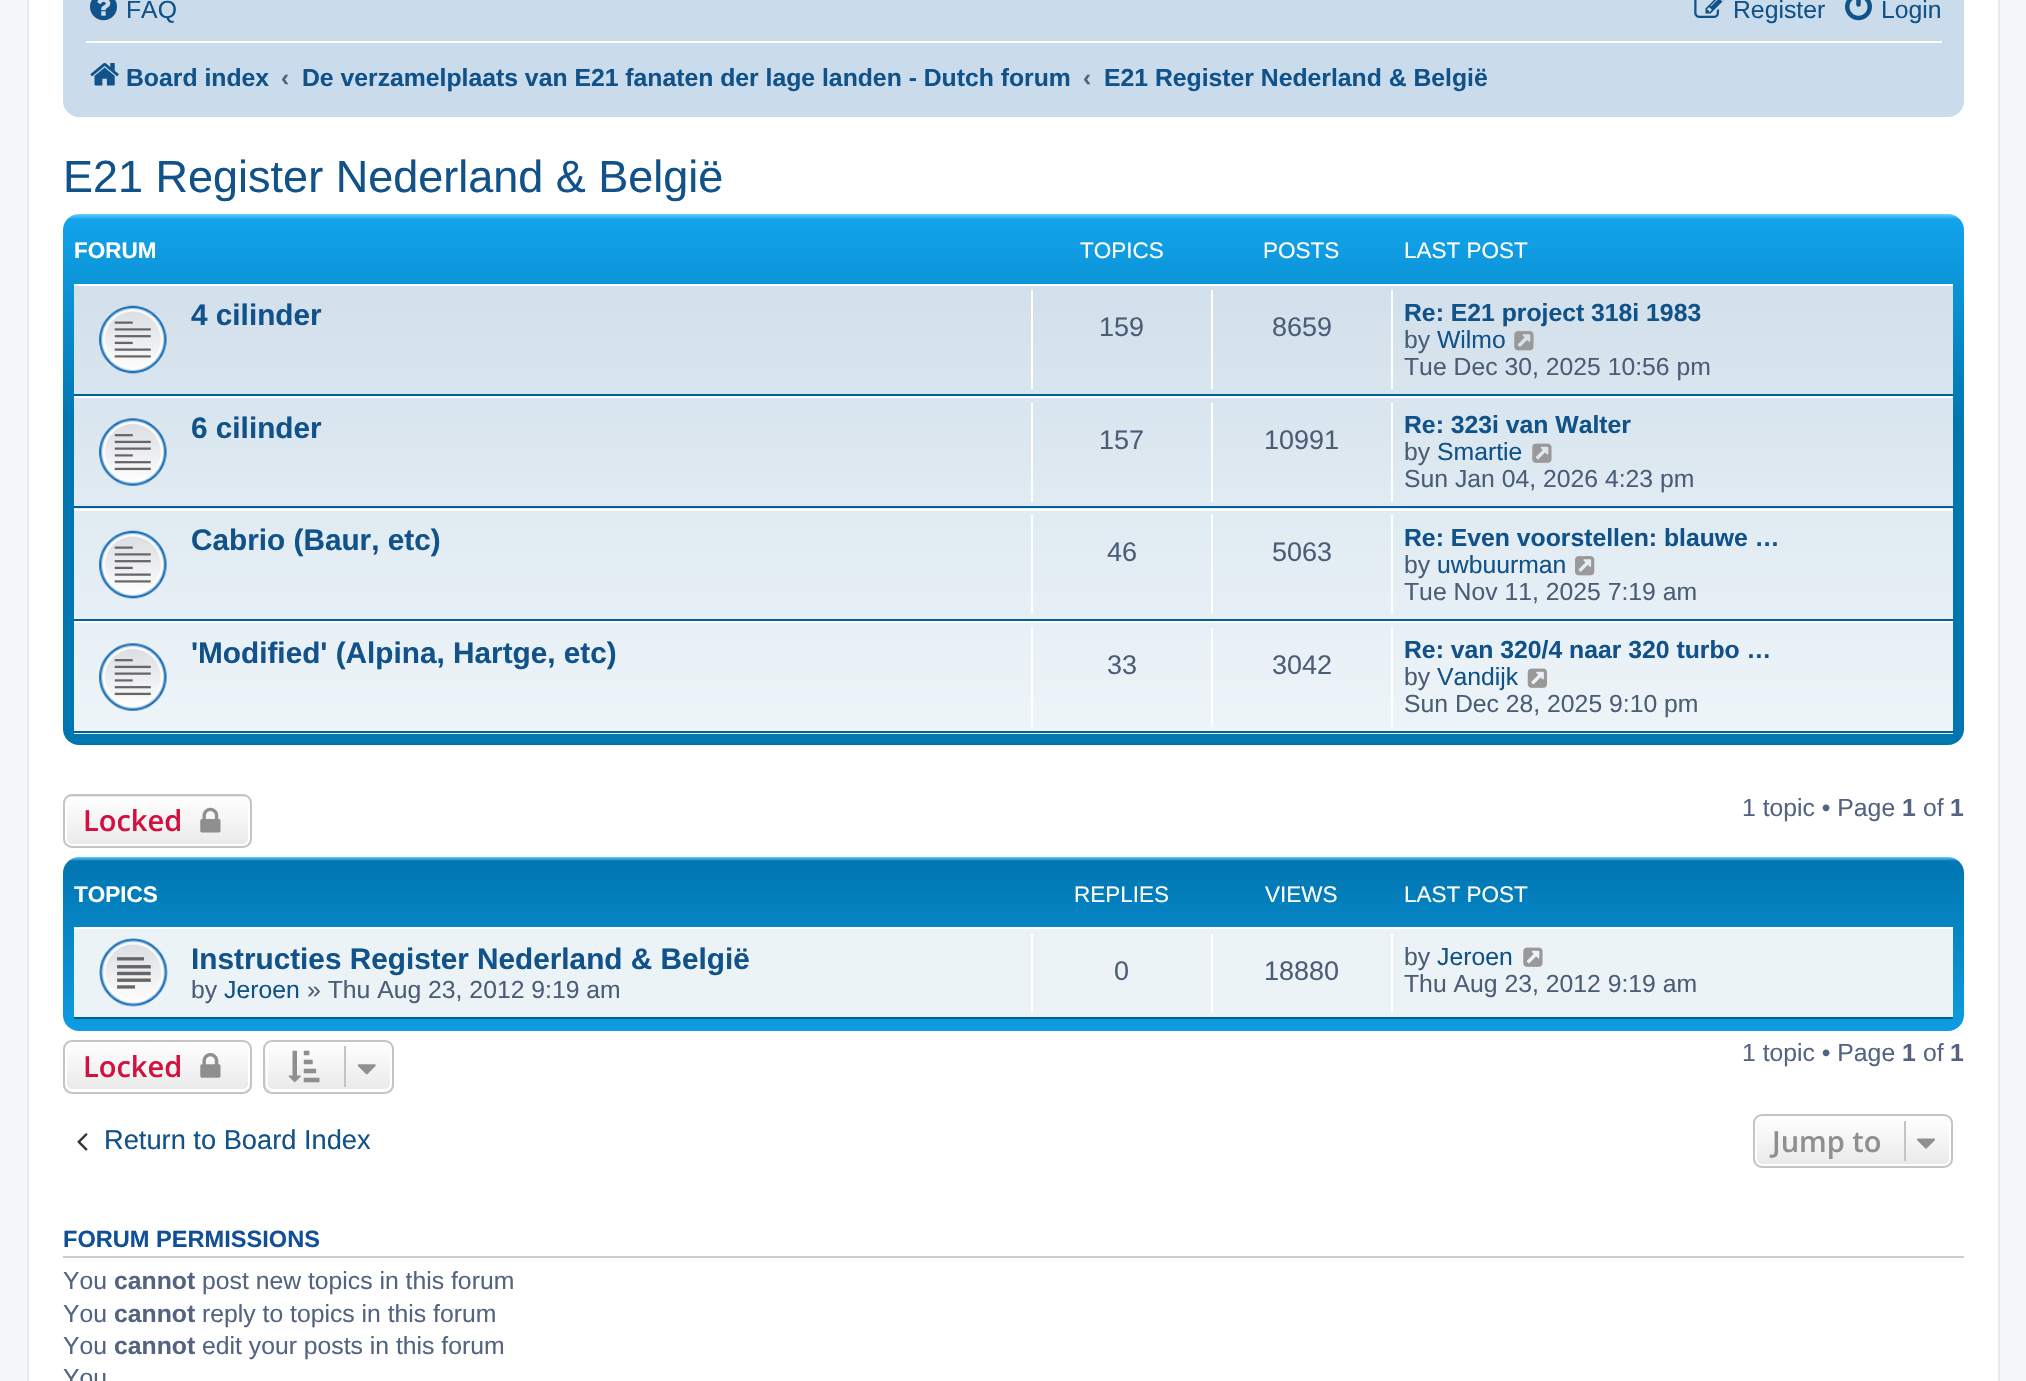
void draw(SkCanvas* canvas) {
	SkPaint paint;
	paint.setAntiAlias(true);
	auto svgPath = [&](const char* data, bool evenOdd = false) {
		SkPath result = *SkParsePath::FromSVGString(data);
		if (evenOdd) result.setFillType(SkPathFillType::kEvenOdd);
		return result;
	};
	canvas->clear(0xfff5f7fa);
	paint.setColor(0xffffffff);
	canvas->drawRect(SkRect::MakeXYWH(28, -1, 1971, 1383), paint);
	paint.setStroke(true);
	paint.setStrokeWidth(2);
	paint.setColor(0xffe6e9ed);
	canvas->drawRect(SkRect::MakeXYWH(28, -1, 1971, 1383), paint);
	paint.setStroke(false);
	paint.setColor(0xffcadceb);
	canvas->drawRoundRect(SkRect::MakeXYWH(63, -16, 1901, 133), 16, 16, paint);
	canvas->drawImageRect(SkImages::DeferredFromEncodedData(SkData::MakeFromFileName("img1.png")), SkRect::MakeXYWH(90, 0, 27, 21), SkSamplingOptions());
	SkFont f1(fontMgr->matchFamilyStyle("Liberation Sans", SkFontStyle::Normal()), 24.75);
	f1.setSubpixel(true);
	paint.setColor(0xff105289);
	canvas->drawString("FAQ", 126, 18, f1, paint);
	canvas->drawImageRect(SkImages::DeferredFromEncodedData(SkData::MakeFromFileName("img2.png")), SkRect::MakeXYWH(1694, 0, 30, 18), SkSamplingOptions());
	canvas->drawString("Register", 1733, 18, f1, paint);
	canvas->drawImageRect(SkImages::DeferredFromEncodedData(SkData::MakeFromFileName("img3.png")), SkRect::MakeXYWH(1845, 0, 27, 21), SkSamplingOptions());
	canvas->drawString("Login", 1881, 18, f1, paint);
	paint.setColor(0xffffffff);
	canvas->drawRect(SkRect::MakeXYWH(86, 41, 1856, 2), paint);
	canvas->drawImageRect(SkImages::DeferredFromEncodedData(SkData::MakeFromFileName("img4.png")), SkRect::MakeXYWH(90, 63, 29, 23), SkSamplingOptions());
	SkFont f2(fontMgr->matchFamilyStyle("Liberation Sans", SkFontStyle::Bold()), 24.75);
	f2.setSubpixel(true);
	paint.setColor(0xff105289);
	canvas->drawString("Board index", 126, 86, f2, paint);
	paint.setColor(0xff536482);
	canvas->drawString("‹", 281, 86, f2, paint);
	paint.setColor(0xff105289);
	canvas->drawString("De verzamelplaats van E21 fanaten der lage landen - Dutch forum", 302, 86, f2, paint);
	paint.setColor(0xff536482);
	canvas->drawString("‹", 1083, 86, f2, paint);
	paint.setColor(0xff105289);
	canvas->drawString("E21 Register Nederland & België", 1104, 86, f2, paint);
	SkFont f3(fontMgr->matchFamilyStyle("Liberation Sans", SkFontStyle::Normal()), 45);
	f3.setSubpixel(true);
	canvas->drawString("E21 Register Nederland & België", 63, 192, f3, paint);
	{
		const SkColor colors[] = {0xff6aceff, 0xff12a3eb, 0xff0076b1, 0xff0076b1};
		const float stops[] = {0, 0.01, 0.39, 1};
		const SkPoint ends[] = {{1014, 214}, {1014, 745}};
		paint.setShader(SkGradientShader::MakeLinear(ends, colors, stops, 4, SkTileMode::kClamp));
		paint.setAlpha(255);
	}
	canvas->drawRoundRect(SkRect::MakeXYWH(63, 214, 1901, 531), 16, 16, paint);
	SkFont f4(fontMgr->matchFamilyStyle("Liberation Sans", SkFontStyle::Bold()), 22.5);
	f4.setSubpixel(true);
	paint.setShader(nullptr);
	paint.setColor(0xffffffff);
	canvas->drawString("FORUM", 74, 258, f4, paint);
	SkFont f5(fontMgr->matchFamilyStyle("Liberation Sans", SkFontStyle::Normal()), 22.5);
	f5.setSubpixel(true);
	canvas->drawString("TOPICS", 1080, 258, f5, paint);
	canvas->drawString("POSTS", 1263, 258, f5, paint);
	canvas->drawString("LAST POST", 1404, 258, f5, paint);
	{
		const SkColor colors[] = {0xffd2e0eb, 0xffeef5f9};
		const float stops[] = {0, 1};
		const SkPoint ends[] = {{1014, 283}, {1014, 734}};
		paint.setShader(SkGradientShader::MakeLinear(ends, colors, stops, 2, SkTileMode::kClamp));
		paint.setAlpha(255);
	}
	canvas->drawRect(SkRect::MakeXYWH(74, 286, 1879, 448), paint);
	paint.setShader(nullptr);
	paint.setColor(0xffffffff);
	canvas->drawRect(SkRect::MakeXYWH(74, 284, 1879, 2), paint);
	paint.setColor(0xff00608f);
	canvas->drawRect(SkRect::MakeXYWH(74, 394, 1879, 2), paint);
	canvas->drawImageRect(SkImages::DeferredFromEncodedData(SkData::MakeFromFileName("img5.png")), SkRect::MakeXYWH(99, 305, 68, 69), SkSamplingOptions());
	SkFont f6(fontMgr->matchFamilyStyle("Liberation Sans", SkFontStyle::Bold()), 29.75);
	f6.setSubpixel(true);
	paint.setColor(0xff105289);
	canvas->drawString("4 cilinder", 191, 325, f6, paint);
	paint.setColor(0xffffffff);
	canvas->drawRect(SkRect::MakeXYWH(1031, 290, 2, 99), paint);
	SkFont f7(fontMgr->matchFamilyStyle("Liberation Sans", SkFontStyle::Normal()), 27);
	f7.setSubpixel(true);
	paint.setColor(0xff4c5d77);
	canvas->drawString("159", 1099, 336, f7, paint);
	paint.setColor(0xffffffff);
	canvas->drawRect(SkRect::MakeXYWH(1211, 290, 2, 99), paint);
	paint.setColor(0xff4c5d77);
	canvas->drawString("8659", 1272, 336, f7, paint);
	paint.setColor(0xffffffff);
	canvas->drawRect(SkRect::MakeXYWH(1391, 290, 2, 99), paint);
	paint.setColor(0xff105289);
	canvas->drawString("Re: E21 project 318i 1983", 1404, 321, f2, paint);
	paint.setColor(0xff4c5d77);
	canvas->drawString("by", 1404, 348, f1, paint);
	paint.setColor(0xff105289);
	canvas->drawString("Wilmo", 1437, 348, f1, paint);
	canvas->drawImageRect(SkImages::DeferredFromEncodedData(SkData::MakeFromFileName("img6.png")), SkRect::MakeXYWH(1514, 331, 20, 20), SkSamplingOptions());
	paint.setColor(0xff4c5d77);
	canvas->drawString("Tue Dec 30, 2025 10:56 pm", 1404, 375, f1, paint);
	paint.setColor(0xffffffff);
	canvas->drawRect(SkRect::MakeXYWH(74, 396, 1879, 2), paint);
	paint.setColor(0xff00608f);
	canvas->drawRect(SkRect::MakeXYWH(74, 506, 1879, 2), paint);
	canvas->drawImageRect(SkImages::DeferredFromEncodedData(SkData::MakeFromFileName("img7.png")), SkRect::MakeXYWH(99, 418, 68, 68), SkSamplingOptions());
	paint.setColor(0xff105289);
	canvas->drawString("6 cilinder", 191, 438, f6, paint);
	paint.setColor(0xffffffff);
	canvas->drawRect(SkRect::MakeXYWH(1031, 403, 2, 99), paint);
	paint.setColor(0xff4c5d77);
	canvas->drawString("157", 1099, 449, f7, paint);
	paint.setColor(0xffffffff);
	canvas->drawRect(SkRect::MakeXYWH(1211, 403, 2, 99), paint);
	paint.setColor(0xff4c5d77);
	canvas->drawString("10991", 1264, 449, f7, paint);
	paint.setColor(0xffffffff);
	canvas->drawRect(SkRect::MakeXYWH(1391, 403, 2, 99), paint);
	paint.setColor(0xff105289);
	canvas->drawString("Re: 323i van Walter", 1404, 433, f2, paint);
	paint.setColor(0xff4c5d77);
	canvas->drawString("by", 1404, 460, f1, paint);
	paint.setColor(0xff105289);
	canvas->drawString("Smartie", 1437, 460, f1, paint);
	canvas->drawImageRect(SkImages::DeferredFromEncodedData(SkData::MakeFromFileName("img8.png")), SkRect::MakeXYWH(1532, 443, 20, 20), SkSamplingOptions());
	paint.setColor(0xff4c5d77);
	canvas->drawString("Sun Jan 04, 2026 4:23 pm", 1404, 487, f1, paint);
	paint.setColor(0xffffffff);
	canvas->drawRect(SkRect::MakeXYWH(74, 509, 1879, 2), paint);
	paint.setColor(0xff00608f);
	canvas->drawRect(SkRect::MakeXYWH(74, 619, 1879, 2), paint);
	canvas->drawImageRect(SkImages::DeferredFromEncodedData(SkData::MakeFromFileName("img9.png")), SkRect::MakeXYWH(99, 530, 68, 69), SkSamplingOptions());
	paint.setColor(0xff105289);
	canvas->drawString("Cabrio (Baur, etc)", 191, 550, f6, paint);
	paint.setColor(0xffffffff);
	canvas->drawRect(SkRect::MakeXYWH(1031, 515, 2, 99), paint);
	paint.setColor(0xff4c5d77);
	canvas->drawString("46", 1107, 561, f7, paint);
	paint.setColor(0xffffffff);
	canvas->drawRect(SkRect::MakeXYWH(1211, 515, 2, 99), paint);
	paint.setColor(0xff4c5d77);
	canvas->drawString("5063", 1272, 561, f7, paint);
	paint.setColor(0xffffffff);
	canvas->drawRect(SkRect::MakeXYWH(1391, 515, 2, 99), paint);
	paint.setColor(0xff105289);
	canvas->drawString("Re: Even voorstellen: blauwe …", 1404, 546, f2, paint);
	paint.setColor(0xff4c5d77);
	canvas->drawString("by", 1404, 573, f1, paint);
	paint.setColor(0xff105289);
	canvas->drawString("uwbuurman", 1437, 573, f1, paint);
	canvas->drawImageRect(SkImages::DeferredFromEncodedData(SkData::MakeFromFileName("img10.png")), SkRect::MakeXYWH(1575, 556, 20, 20), SkSamplingOptions());
	paint.setColor(0xff4c5d77);
	canvas->drawString("Tue Nov 11, 2025 7:19 am", 1404, 600, f1, paint);
	paint.setColor(0xffffffff);
	canvas->drawRect(SkRect::MakeXYWH(74, 621, 1879, 2), paint);
	paint.setColor(0xff00608f);
	canvas->drawRect(SkRect::MakeXYWH(74, 731, 1879, 2), paint);
	canvas->drawImageRect(SkImages::DeferredFromEncodedData(SkData::MakeFromFileName("img11.png")), SkRect::MakeXYWH(99, 643, 68, 68), SkSamplingOptions());
	paint.setColor(0xff105289);
	canvas->drawString("'Modified' (Alpina, Hartge, etc)", 191, 663, f6, paint);
	paint.setColor(0xffffffff);
	canvas->drawRect(SkRect::MakeXYWH(1031, 628, 2, 99), paint);
	paint.setColor(0xff4c5d77);
	canvas->drawString("33", 1107, 674, f7, paint);
	paint.setColor(0xffffffff);
	canvas->drawRect(SkRect::MakeXYWH(1211, 628, 2, 99), paint);
	paint.setColor(0xff4c5d77);
	canvas->drawString("3042", 1272, 674, f7, paint);
	paint.setColor(0xffffffff);
	canvas->drawRect(SkRect::MakeXYWH(1391, 628, 2, 99), paint);
	paint.setColor(0xff105289);
	canvas->drawString("Re: van 320/4 naar 320 turbo …", 1404, 658, f2, paint);
	paint.setColor(0xff4c5d77);
	canvas->drawString("by", 1404, 685, f1, paint);
	paint.setColor(0xff105289);
	canvas->drawString("Vandijk", 1437, 685, f1, paint);
	canvas->drawImageRect(SkImages::DeferredFromEncodedData(SkData::MakeFromFileName("img12.png")), SkRect::MakeXYWH(1527, 668, 20, 20), SkSamplingOptions());
	paint.setColor(0xff4c5d77);
	canvas->drawString("Sun Dec 28, 2025 9:10 pm", 1404, 712, f1, paint);
	canvas->save();
	canvas->clipPath(svgPath("M72 794H243C248 794 252 798 252 803V839C252 844 248 848 243 848H72C67 848 63 844 63 839V803C63 798 67 794 72 794Z"), true);
	{
		const SkColor colors[] = {0xffffffff, 0xffe9e9e9};
		const float stops[] = {0, 1};
		const SkPoint ends[] = {{158, 747}, {158, 797}};
		paint.setShader(SkGradientShader::MakeLinear(ends, colors, stops, 2, SkTileMode::kClamp));
		paint.setAlpha(255);
	}
	canvas->drawRect(SkRect::MakeXYWH(63, 794, 189, 3), paint);
	{
		const SkColor colors[] = {0xffffffff, 0xffe9e9e9};
		const float stops[] = {0, 1};
		const SkPoint ends[] = {{158, 797}, {158, 846}};
		paint.setShader(SkGradientShader::MakeLinear(ends, colors, stops, 2, SkTileMode::kClamp));
		paint.setAlpha(255);
	}
	canvas->drawRect(SkRect::MakeXYWH(63, 797, 189, 49), paint);
	canvas->restore();
	paint.setStroke(true);
	paint.setShader(nullptr);
	paint.setColor(0xffffffff);
	canvas->drawRoundRect(SkRect::MakeXYWH(66, 798, 183, 47), 6, 6, paint);
	paint.setColor(0xffc7c3bf);
	canvas->drawRoundRect(SkRect::MakeXYWH(64, 795, 187, 52), 8, 8, paint);
	SkFont f8(fontMgr->matchFamilyStyle("Open Sans", SkFontStyle(600, SkFontStyle::kNormal_Width, SkFontStyle::kUpright_Slant)), 29);
	f8.setSubpixel(true);
	paint.setStroke(false);
	paint.setColor(0xffd31141);
	canvas->drawString("Locked", 83, 831, f8, paint);
	canvas->drawImageRect(SkImages::DeferredFromEncodedData(SkData::MakeFromFileName("img13.png")), SkRect::MakeXYWH(200, 807, 21, 26), SkSamplingOptions());
	paint.setColor(0xff536482);
	canvas->drawString("1 topic • Page", 1742, 816, f1, paint);
	canvas->drawString("1", 1902, 816, f2, paint);
	canvas->drawString("of", 1923, 816, f1, paint);
	canvas->drawString("1", 1950, 816, f2, paint);
	{
		const SkColor colors[] = {0xff6aceff, 0xff0076b1, 0xff12a3eb};
		const float stops[] = {0, 0.02, 1};
		const SkPoint ends[] = {{1014, 857}, {1014, 1064}};
		paint.setShader(SkGradientShader::MakeLinear(ends, colors, stops, 3, SkTileMode::kClamp));
		paint.setAlpha(255);
	}
	canvas->drawRoundRect(SkRect::MakeXYWH(63, 857, 1901, 174), 16, 16, paint);
	paint.setShader(nullptr);
	paint.setColor(0xffffffff);
	canvas->drawString("TOPICS", 74, 902, f4, paint);
	canvas->drawString("REPLIES", 1074, 902, f5, paint);
	canvas->drawString("VIEWS", 1265, 902, f5, paint);
	canvas->drawString("LAST POST", 1404, 902, f5, paint);
	paint.setColor(0xffecf3f7);
	canvas->drawRect(SkRect::MakeXYWH(74, 929, 1879, 88), paint);
	paint.setColor(0xffffffff);
	canvas->drawRect(SkRect::MakeXYWH(74, 927, 1879, 2), paint);
	paint.setColor(0xff00608f);
	canvas->drawRect(SkRect::MakeXYWH(74, 1017, 1879, 2), paint);
	canvas->drawImageRect(SkImages::DeferredFromEncodedData(SkData::MakeFromFileName("img14.png")), SkRect::MakeXYWH(99, 938, 69, 69), SkSamplingOptions());
	paint.setColor(0xff105289);
	canvas->drawString("Instructies Register Nederland & België", 191, 969, f6, paint);
	paint.setColor(0xff4c5d77);
	canvas->drawString("by", 191, 998, f1, paint);
	paint.setColor(0xff105289);
	canvas->drawString("Jeroen", 224, 998, f1, paint);
	paint.setColor(0xff4c5d77);
	canvas->drawString("» Thu Aug 23, 2012 9:19 am", 307, 998, f1, paint);
	paint.setColor(0xffffffff);
	canvas->drawRect(SkRect::MakeXYWH(1031, 934, 2, 79), paint);
	paint.setColor(0xff4c5d77);
	canvas->drawString("0", 1114, 980, f7, paint);
	paint.setColor(0xffffffff);
	canvas->drawRect(SkRect::MakeXYWH(1211, 934, 2, 79), paint);
	paint.setColor(0xff4c5d77);
	canvas->drawString("18880", 1264, 980, f7, paint);
	paint.setColor(0xffffffff);
	canvas->drawRect(SkRect::MakeXYWH(1391, 934, 2, 79), paint);
	paint.setColor(0xff4c5d77);
	canvas->drawString("by", 1404, 965, f1, paint);
	paint.setColor(0xff105289);
	canvas->drawString("Jeroen", 1437, 965, f1, paint);
	canvas->drawImageRect(SkImages::DeferredFromEncodedData(SkData::MakeFromFileName("img15.png")), SkRect::MakeXYWH(1523, 947, 20, 20), SkSamplingOptions());
	paint.setColor(0xff4c5d77);
	canvas->drawString("Thu Aug 23, 2012 9:19 am", 1404, 992, f1, paint);
	canvas->save();
	canvas->clipPath(svgPath("M72 1040H243C248 1040 252 1044 252 1049V1085C252 1090 248 1094 243 1094H72C67 1094 63 1090 63 1085V1049C63 1044 67 1040 72 1040Z"), true);
	{
		const SkColor colors[] = {0xffffffff, 0xffe9e9e9};
		const float stops[] = {0, 1};
		const SkPoint ends[] = {{158, 1042}, {158, 1091}};
		paint.setShader(SkGradientShader::MakeLinear(ends, colors, stops, 2, SkTileMode::kClamp));
		paint.setAlpha(255);
	}
	canvas->drawRect(SkRect::MakeXYWH(63, 1042, 189, 49), paint);
	canvas->restore();
	paint.setStroke(true);
	paint.setShader(nullptr);
	paint.setColor(0xffffffff);
	canvas->drawRoundRect(SkRect::MakeXYWH(66, 1043, 183, 47), 6, 6, paint);
	paint.setColor(0xffc7c3bf);
	canvas->drawRoundRect(SkRect::MakeXYWH(64, 1041, 187, 52), 8, 8, paint);
	paint.setStroke(false);
	paint.setColor(0xffd31141);
	canvas->drawString("Locked", 83, 1077, f8, paint);
	canvas->drawImageRect(SkImages::DeferredFromEncodedData(SkData::MakeFromFileName("img16.png")), SkRect::MakeXYWH(200, 1053, 21, 25), SkSamplingOptions());
	canvas->save();
	canvas->clipPath(svgPath("M272 1040H385C390 1040 394 1044 394 1049V1085C394 1090 390 1094 385 1094H272C267 1094 263 1090 263 1085V1049C263 1044 267 1040 272 1040Z"), true);
	{
		const SkColor colors[] = {0xffffffff, 0xffe9e9e9};
		const float stops[] = {0, 1};
		const SkPoint ends[] = {{329, 1042}, {329, 1091}};
		paint.setShader(SkGradientShader::MakeLinear(ends, colors, stops, 2, SkTileMode::kClamp));
		paint.setAlpha(255);
	}
	canvas->drawRect(SkRect::MakeXYWH(263, 1042, 131, 49), paint);
	canvas->restore();
	paint.setStroke(true);
	paint.setShader(nullptr);
	paint.setColor(0xffffffff);
	canvas->drawRoundRect(SkRect::MakeXYWH(267, 1043, 124, 47), 6, 6, paint);
	paint.setColor(0xffc7c3bf);
	canvas->drawRoundRect(SkRect::MakeXYWH(264, 1041, 129, 52), 8, 8, paint);
	canvas->drawImageRect(SkImages::DeferredFromEncodedData(SkData::MakeFromFileName("img17.png")), SkRect::MakeXYWH(288, 1050, 32, 33), SkSamplingOptions());
	paint.setStroke(false);
	canvas->drawRect(SkRect::MakeXYWH(344, 1046, 2, 41), paint);
	canvas->drawImageRect(SkImages::DeferredFromEncodedData(SkData::MakeFromFileName("img18.png")), SkRect::MakeXYWH(357, 1064, 19, 11), SkSamplingOptions());
	paint.setColor(0xff536482);
	canvas->drawString("1 topic • Page", 1742, 1061, f1, paint);
	canvas->drawString("1", 1902, 1061, f2, paint);
	canvas->drawString("of", 1923, 1061, f1, paint);
	canvas->drawString("1", 1950, 1061, f2, paint);
	canvas->drawImageRect(SkImages::DeferredFromEncodedData(SkData::MakeFromFileName("img19.png")), SkRect::MakeXYWH(77, 1133, 11, 18), SkSamplingOptions());
	SkFont f9(fontMgr->matchFamilyStyle("Liberation Sans", SkFontStyle::Normal()), 27.25);
	f9.setSubpixel(true);
	paint.setColor(0xff105289);
	canvas->drawString("Return to Board Index", 104, 1149, f9, paint);
	canvas->save();
	canvas->clipPath(svgPath("M1762 1114H1944C1949 1114 1953 1118 1953 1123V1159C1953 1164 1949 1168 1944 1168H1762C1757 1168 1753 1164 1753 1159V1123C1753 1118 1757 1114 1762 1114Z"), true);
	{
		const SkColor colors[] = {0xffffffff, 0xffe9e9e9};
		const float stops[] = {0, 1};
		const SkPoint ends[] = {{1853, 1116}, {1853, 1166}};
		paint.setShader(SkGradientShader::MakeLinear(ends, colors, stops, 2, SkTileMode::kClamp));
		paint.setAlpha(255);
	}
	canvas->drawRect(SkRect::MakeXYWH(1753, 1116, 200, 50), paint);
	canvas->restore();
	paint.setStroke(true);
	paint.setShader(nullptr);
	paint.setColor(0xffffffff);
	canvas->drawRoundRect(SkRect::MakeXYWH(1756, 1117, 194, 48), 6, 6, paint);
	paint.setColor(0xffc7c3bf);
	canvas->drawRoundRect(SkRect::MakeXYWH(1754, 1115, 198, 52), 8, 8, paint);
	paint.setStroke(false);
	paint.setColor(0xff8f8f8f);
	canvas->drawString("Jump to", 1772, 1152, f8, paint);
	paint.setColor(0xffc7c3bf);
	canvas->drawRect(SkRect::MakeXYWH(1904, 1121, 2, 40), paint);
	canvas->drawImageRect(SkImages::DeferredFromEncodedData(SkData::MakeFromFileName("img20.png")), SkRect::MakeXYWH(1917, 1138, 18, 11), SkSamplingOptions());
	paint.setColor(0xffcccccc);
	canvas->drawRect(SkRect::MakeXYWH(63, 1256, 1901, 2), paint);
	SkFont f10(fontMgr->matchFamilyStyle("Liberation Sans", SkFontStyle::Bold()), 23.6);
	f10.setSubpixel(true);
	paint.setColor(0xff115098);
	canvas->drawString("FORUM PERMISSIONS", 63, 1247, f10, paint);
	paint.setColor(0xff536482);
	canvas->drawString("You", 63, 1289, f1, paint);
	canvas->drawString("cannot", 114, 1289, f2, paint);
	canvas->drawString("post new topics in this forum", 202, 1289, f1, paint);
	canvas->drawString("You", 63, 1322, f1, paint);
	canvas->drawString("cannot", 114, 1322, f2, paint);
	canvas->drawString("reply to topics in this forum", 202, 1322, f1, paint);
	canvas->drawString("You", 63, 1354, f1, paint);
	canvas->drawString("cannot", 114, 1354, f2, paint);
	canvas->drawString("edit your posts in this forum", 202, 1354, f1, paint);
	canvas->drawString("You", 63, 1386, f1, paint);
}
